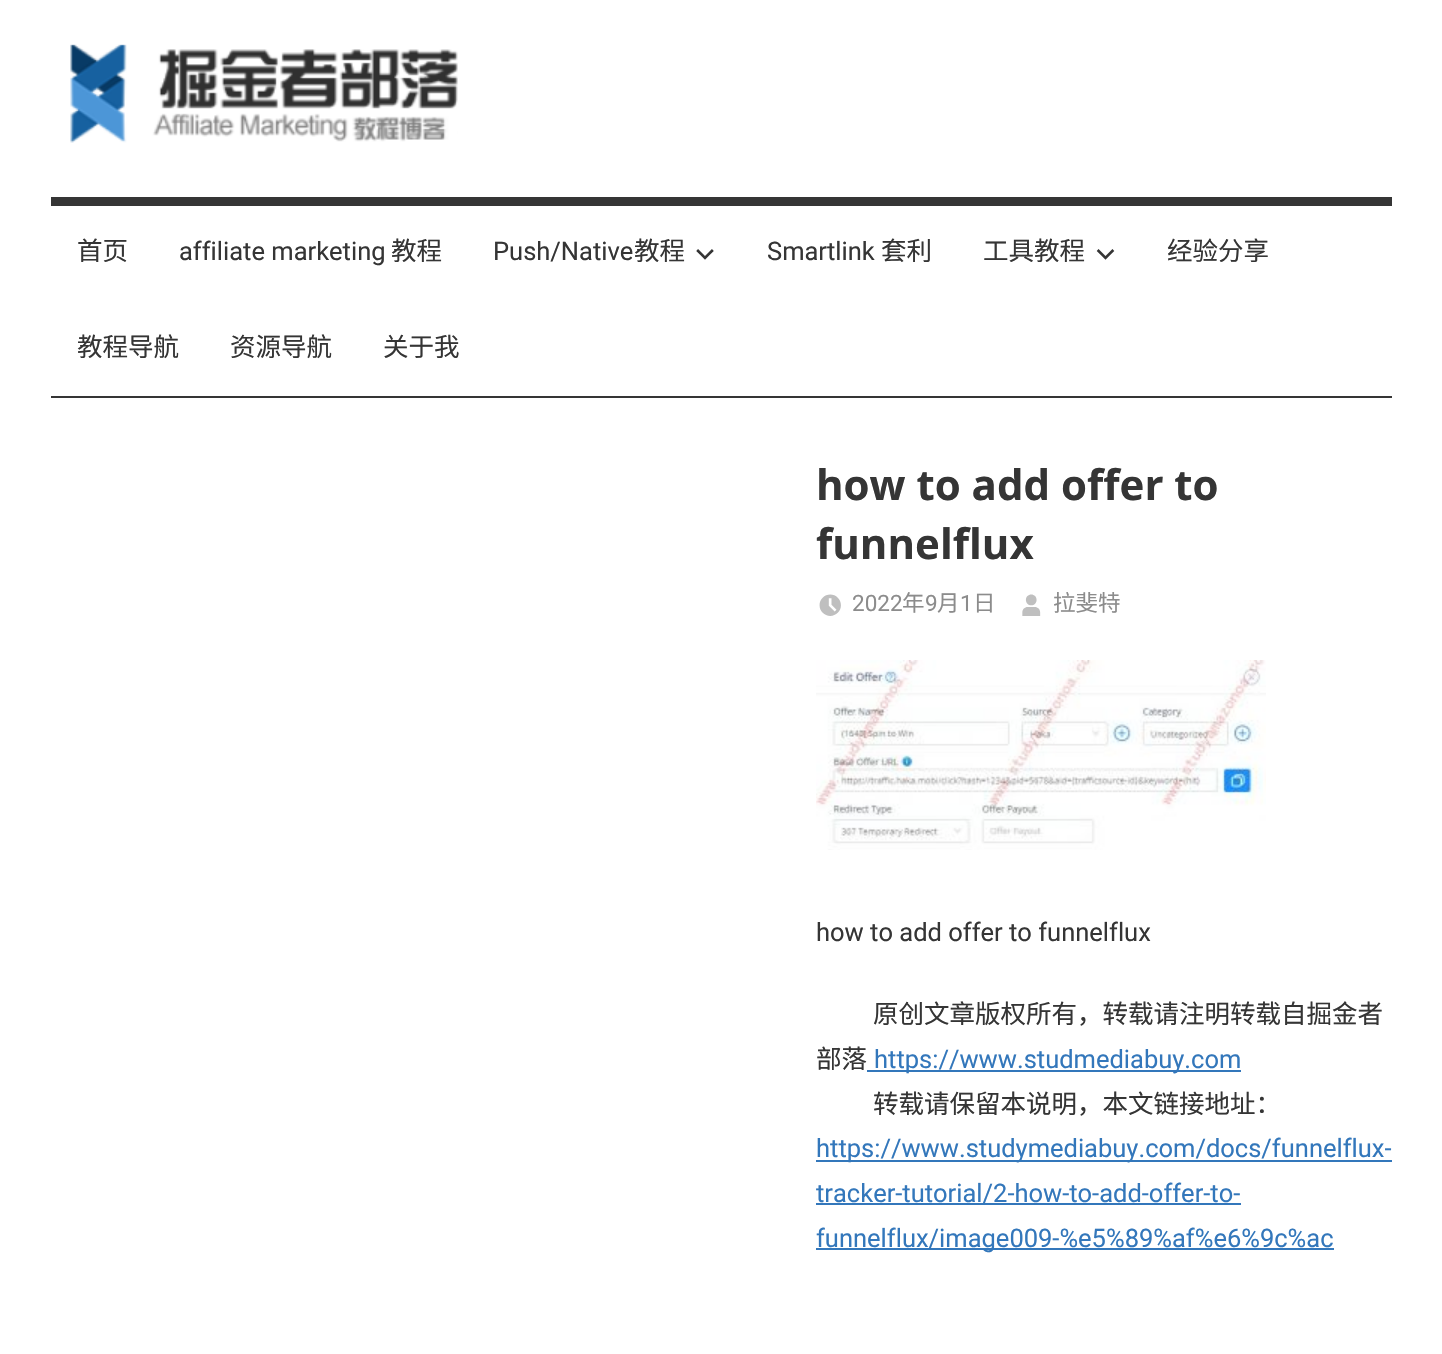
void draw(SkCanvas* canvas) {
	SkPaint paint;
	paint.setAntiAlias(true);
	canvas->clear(0xffffffff);
	canvas->drawImageRect(SkImages::DeferredFromEncodedData(SkData::MakeFromFileName("img1.png")), SkRect::MakeXYWH(70, 44, 388, 99), SkSamplingOptions());
	paint.setColor(0xff353535);
	canvas->drawRect(SkRect::MakeXYWH(51, 197, 1341, 9), paint);
	canvas->drawRect(SkRect::MakeXYWH(51, 396, 1341, 2), paint);
	SkFont f1(fontMgr->matchFamilyStyle("Noto Sans CJK SC", SkFontStyle::Normal()), 25.5);
	f1.setSubpixel(true);
	canvas->drawString("首页", 77, 260, f1, paint);
	SkFont f2(fontMgr->matchFamilyStyle("Roboto", SkFontStyle::Normal()), 25.5);
	f2.setSubpixel(true);
	canvas->drawString("affiliate marketing", 179, 260, f2, paint);
	canvas->drawString("教程", 391, 260, f1, paint);
	canvas->drawString("Push/Native", 493, 260, f2, paint);
	canvas->drawString("教程", 634, 260, f1, paint);
	canvas->drawImageRect(SkImages::DeferredFromEncodedData(SkData::MakeFromFileName("img2.png")), SkRect::MakeXYWH(696, 249, 18, 11), SkSamplingOptions());
	canvas->drawString("Smartlink", 767, 260, f2, paint);
	canvas->drawString("套利", 881, 260, f1, paint);
	canvas->drawString("工具教程", 983, 260, f1, paint);
	canvas->drawImageRect(SkImages::DeferredFromEncodedData(SkData::MakeFromFileName("img3.png")), SkRect::MakeXYWH(1096, 249, 19, 11), SkSamplingOptions());
	canvas->drawString("经验分享", 1167, 260, f1, paint);
	canvas->drawString("教程导航", 77, 356, f1, paint);
	canvas->drawString("资源导航", 230, 356, f1, paint);
	canvas->drawString("关于我", 383, 356, f1, paint);
	SkFont f3(fontMgr->matchFamilyStyle("Open Sans", SkFontStyle::Bold()), 42);
	f3.setSubpixel(true);
	canvas->drawString("how to add offer to", 816, 500, f3, paint);
	canvas->drawString("funnelflux", 816, 559, f3, paint);
	canvas->drawImageRect(SkImages::DeferredFromEncodedData(SkData::MakeFromFileName("img4.png")), SkRect::MakeXYWH(819, 594, 22, 22), SkSamplingOptions());
	SkFont f4(fontMgr->matchFamilyStyle("Roboto", SkFontStyle::Normal()), 22.5);
	f4.setSubpixel(true);
	paint.setColor(0xff8c8c8c);
	canvas->drawString("2022", 852, 611, f4, paint);
	SkFont f5(fontMgr->matchFamilyStyle("Noto Sans CJK SC", SkFontStyle::Normal()), 22.5);
	f5.setSubpixel(true);
	canvas->drawString("年", 902, 611, f5, paint);
	canvas->drawString("9", 925, 611, f4, paint);
	canvas->drawString("月", 937, 611, f5, paint);
	canvas->drawString("1", 960, 611, f4, paint);
	canvas->drawString("日", 973, 611, f5, paint);
	canvas->drawImageRect(SkImages::DeferredFromEncodedData(SkData::MakeFromFileName("img5.png")), SkRect::MakeXYWH(1022, 594, 19, 22), SkSamplingOptions());
	canvas->drawString("拉斐特", 1053, 611, f5, paint);
	canvas->drawImageRect(SkImages::DeferredFromEncodedData(SkData::MakeFromFileName("img6.png")), SkRect::MakeXYWH(816, 660, 450, 190), SkSamplingOptions());
	paint.setColor(0xff353535);
	canvas->drawString("how to add offer to funnelflux", 816, 941, f2, paint);
	canvas->drawString("原创文章版权所有，转载请注明转载自掘金者", 873, 1023, f1, paint);
	canvas->drawString("部落", 816, 1068, f1, paint);
	paint.setColor(0xff3377bb);
	canvas->drawRect(SkRect::MakeXYWH(867, 1070, 374, 2), paint);
	canvas->drawString("https://www.studmediabuy.com", 874, 1068, f2, paint);
	paint.setColor(0xff353535);
	canvas->drawString("转载请保留本说明，本文链接地址：", 873, 1113, f1, paint);
	paint.setColor(0xff3377bb);
	canvas->drawRect(SkRect::MakeXYWH(816, 1160, 576, 2), paint);
	canvas->drawString("https://www.studymediabuy.com/docs/funnelflux-", 816, 1157, f2, paint);
	canvas->drawRect(SkRect::MakeXYWH(816, 1203, 425, 2), paint);
	canvas->drawString("tracker-tutorial/2-how-to-add-offer-to-", 816, 1202, f2, paint);
	canvas->drawRect(SkRect::MakeXYWH(816, 1248, 518, 2), paint);
	canvas->drawString("funnelflux/image009-%e5%89%af%e6%9c%ac", 816, 1247, f2, paint);
}
